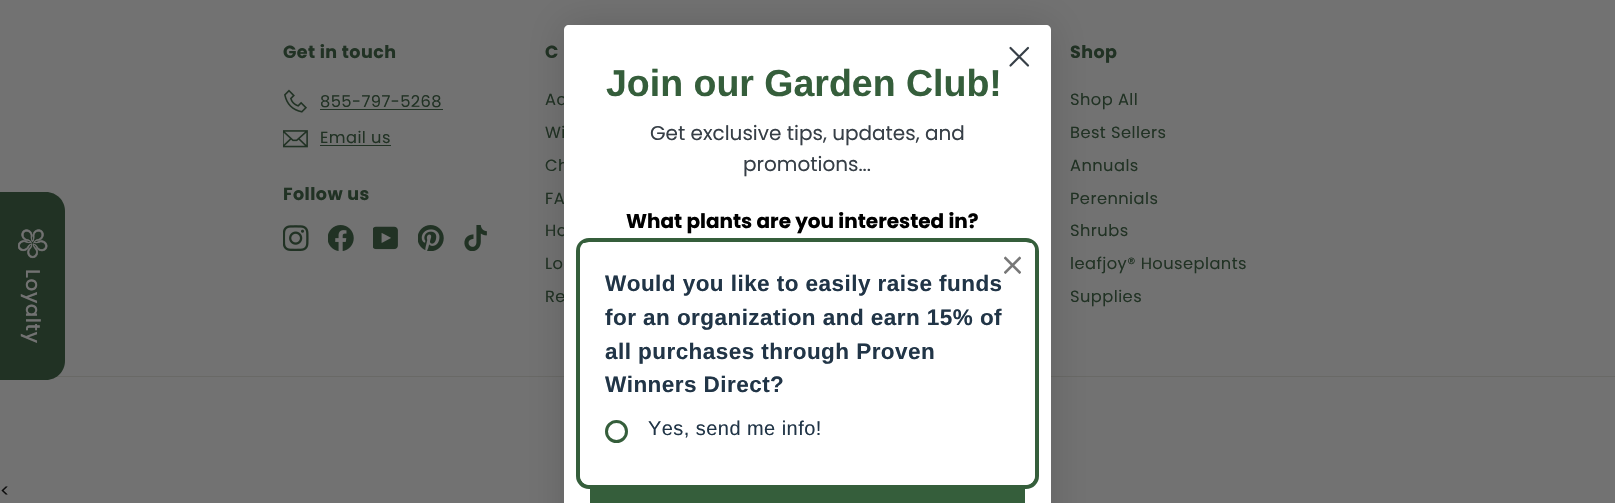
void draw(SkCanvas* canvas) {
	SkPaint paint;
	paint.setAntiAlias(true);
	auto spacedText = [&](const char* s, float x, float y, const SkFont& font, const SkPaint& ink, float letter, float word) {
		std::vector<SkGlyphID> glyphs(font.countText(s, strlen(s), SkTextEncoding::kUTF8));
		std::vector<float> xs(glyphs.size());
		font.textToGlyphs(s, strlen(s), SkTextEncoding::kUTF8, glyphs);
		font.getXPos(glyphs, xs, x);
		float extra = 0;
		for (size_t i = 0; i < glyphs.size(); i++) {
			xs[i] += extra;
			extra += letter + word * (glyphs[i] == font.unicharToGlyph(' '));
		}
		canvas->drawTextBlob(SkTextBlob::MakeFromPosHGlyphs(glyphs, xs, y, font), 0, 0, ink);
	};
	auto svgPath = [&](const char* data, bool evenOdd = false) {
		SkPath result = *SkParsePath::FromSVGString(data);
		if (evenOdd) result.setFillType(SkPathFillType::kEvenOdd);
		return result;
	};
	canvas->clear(0xff727272);
	SkFont f1(fontMgr->matchFamilyStyle("Poppins", SkFontStyle::Bold()), 17.5);
	f1.setSubpixel(true);
	paint.setColor(0xff213224);
	spacedText("Get in touch", 283, 58, f1, paint, 0.45, 0);
	canvas->drawImageRect(SkImages::DeferredFromEncodedData(SkData::MakeFromFileName("img1.png")), SkRect::MakeXYWH(284, 89, 23, 24), SkSamplingOptions());
	SkFont f2(fontMgr->matchFamilyStyle("Poppins", SkFontStyle::Normal()), 16.25);
	f2.setSubpixel(true);
	spacedText("855-797-5268", 320, 107, f2, paint, 0.45, 0);
	canvas->drawRect(SkRect::MakeXYWH(320, 109, 123, 1), paint);
	canvas->drawImageRect(SkImages::DeferredFromEncodedData(SkData::MakeFromFileName("img2.png")), SkRect::MakeXYWH(283, 130, 25, 18), SkSamplingOptions());
	spacedText("Email us", 320, 143, f2, paint, 0.45, 0);
	canvas->drawRect(SkRect::MakeXYWH(320, 145, 71, 1), paint);
	spacedText("Follow us", 283, 200, f1, paint, 0.45, 0);
	canvas->drawImageRect(SkImages::DeferredFromEncodedData(SkData::MakeFromFileName("img3.png")), SkRect::MakeXYWH(283, 225, 26, 26), SkSamplingOptions());
	canvas->drawImageRect(SkImages::DeferredFromEncodedData(SkData::MakeFromFileName("img4.png")), SkRect::MakeXYWH(328, 225, 26, 26), SkSamplingOptions());
	canvas->drawImageRect(SkImages::DeferredFromEncodedData(SkData::MakeFromFileName("img5.png")), SkRect::MakeXYWH(373, 226, 25, 24), SkSamplingOptions());
	canvas->drawImageRect(SkImages::DeferredFromEncodedData(SkData::MakeFromFileName("img6.png")), SkRect::MakeXYWH(418, 225, 26, 26), SkSamplingOptions());
	canvas->drawImageRect(SkImages::DeferredFromEncodedData(SkData::MakeFromFileName("img7.png")), SkRect::MakeXYWH(464, 225, 23, 26), SkSamplingOptions());
	spacedText("C", 545, 58, f1, paint, 0.45, 0);
	spacedText("Ac", 545, 105, f2, paint, 0.45, 0);
	spacedText("Wi", 545, 138, f2, paint, 0.45, 0);
	spacedText("Ch", 545, 171, f2, paint, 0.45, 0);
	spacedText("FA", 545, 204, f2, paint, 0.45, 0);
	spacedText("Ha", 545, 236, f2, paint, 0.45, 0);
	spacedText("Lo", 545, 269, f2, paint, 0.45, 0);
	spacedText("Re", 545, 302, f2, paint, 0.45, 0);
	spacedText("Shop", 1070, 58, f1, paint, 0.45, 0);
	spacedText("Shop All", 1070, 105, f2, paint, 0.45, 0);
	spacedText("Best Sellers", 1070, 138, f2, paint, 0.45, 0);
	spacedText("Annuals", 1070, 171, f2, paint, 0.45, 0);
	spacedText("Perennials", 1070, 204, f2, paint, 0.45, 0);
	spacedText("Shrubs", 1070, 236, f2, paint, 0.45, 0);
	spacedText("leafjoy® Houseplants", 1070, 269, f2, paint, 0.45, 0);
	spacedText("Supplies", 1070, 302, f2, paint, 0.45, 0);
	paint.setColor(0xff696966);
	canvas->drawRect(SkRect::MakeXYWH(56, 376, 1559, 1), paint);
	paint.setColor(0x26000000);
	paint.setMaskFilter(SkMaskFilter::MakeBlur(kNormal_SkBlurStyle, 19));
	canvas->drawRoundRect(SkRect::MakeXYWH(564, 25, 487, 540), 5, 5, paint);
	paint.setMaskFilter(nullptr);
	paint.setColor(0xffffffff);
	canvas->drawPath(svgPath("M569 25H1046C1049 25 1051 27 1051 30V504H564V30C564 27 566 25 569 25Z"), paint);
	paint.setStroke(true);
	paint.setStrokeWidth(2.2);
	paint.setStrokeCap(SkPaint::kRound_Cap);
	paint.setStrokeJoin(SkPaint::kRound_Join);
	paint.setColor(0xff373f47);
	canvas->drawPath(svgPath("M1010.5 48L1028 65.5M1010.5 65.5L1028 48Z"), paint);
	SkFont f3(fontMgr->matchFamilyStyle("Liberation Sans", SkFontStyle::Bold()), 37.5);
	f3.setSubpixel(true);
	paint.setStroke(false);
	paint.setColor(0xff355e3b);
	canvas->drawString("Join our Garden Club!", 606, 96, f3, paint);
	SkFont f4(fontMgr->matchFamilyStyle("Poppins", SkFontStyle::Normal()), 20);
	f4.setSubpixel(true);
	paint.setColor(0xff373f47);
	canvas->drawString("Get exclusive tips, updates, and", 650, 140, f4, paint);
	canvas->drawString("promotions...", 743, 171, f4, paint);
	SkFont f5(fontMgr->matchFamilyStyle("Poppins", SkFontStyle::Bold()), 20);
	f5.setSubpixel(true);
	paint.setColor(0xff000000);
	canvas->drawString("What plants are you interested in?", 626, 228, f5, paint);
	paint.setColor(0xff355e3b);
	canvas->drawRect(SkRect::MakeXYWH(590, 489, 435, 14), paint);
	paint.setColor(0xff213224);
	canvas->drawPath(svgPath("M65 211V361C65 371 57 380 46 380H0V192H46C57 192 65 201 65 211Z"), paint);
	canvas->drawImageRect(SkImages::DeferredFromEncodedData(SkData::MakeFromFileName("img8.png")), SkRect::MakeXYWH(18, 229, 30, 30), SkSamplingOptions());
	SkFont f6(fontMgr->matchFamilyStyle("Poppins", SkFontStyle(500, SkFontStyle::kNormal_Width, SkFontStyle::kUpright_Slant)), 20);
	f6.setSubpixel(true);
	paint.setColor(0xff727272);
	canvas->save();
	canvas->rotate(90, 26, 269);
	spacedText("Loyalty", 26, 269, f6, paint, 0.5, 0);
	canvas->restore();
	paint.setStroke(true);
	paint.setStrokeWidth(4);
	paint.setStrokeCap(SkPaint::kButt_Cap);
	paint.setStrokeJoin(SkPaint::kMiter_Join);
	paint.setColor(0xff355e3b);
	canvas->drawRoundRect(SkRect::MakeXYWH(578, 240, 459, 247), 11, 11, paint);
	canvas->save();
	canvas->clipPath(svgPath("M589 241H1026C1031 241 1035 245 1035 250V476C1035 481 1031 485 1026 485H589C584 485 580 481 580 476V250C580 245 584 241 589 241Z"), true);
	paint.setStroke(false);
	paint.setColor(0xffffffff);
	canvas->drawPath(svgPath("M580 243H1035V476C1035 481 1031 485 1026 485H589C584 485 580 481 580 476Z"), paint);
	canvas->restore();
	canvas->drawImageRect(SkImages::DeferredFromEncodedData(SkData::MakeFromFileName("img9.png")), SkRect::MakeXYWH(1004, 256, 17, 18), SkSamplingOptions());
	SkFont f7(fontMgr->matchFamilyStyle("Liberation Sans", SkFontStyle::Bold()), 22.5);
	f7.setSubpixel(true);
	paint.setColor(0xff213547);
	spacedText("Would you like to easily raise funds", 605, 291, f7, paint, 0.45, 0);
	spacedText("for an organization and earn 15% of", 605, 325, f7, paint, 0.45, 0);
	spacedText("all purchases through Proven", 605, 359, f7, paint, 0.45, 0);
	spacedText("Winners Direct?", 605, 392, f7, paint, 0.45, 0);
	paint.setStroke(true);
	paint.setStrokeWidth(3);
	paint.setColor(0xff355e3b);
	canvas->drawCircle(616.5, 431.5, 10, paint);
	SkFont f8(fontMgr->matchFamilyStyle("Liberation Sans", SkFontStyle::Normal()), 20);
	f8.setSubpixel(true);
	paint.setStroke(false);
	paint.setColor(0xff213547);
	spacedText("Yes, send me info!", 648, 435, f8, paint, 0.45, 0);
	SkFont f9(fontMgr->matchFamilyStyle("Poppins", SkFontStyle::Normal()), 17.5);
	f9.setSubpixel(true);
	paint.setColor(0xff0c0c0c);
	spacedText("<", 0, 497, f9, paint, 0.45, 0);
}
